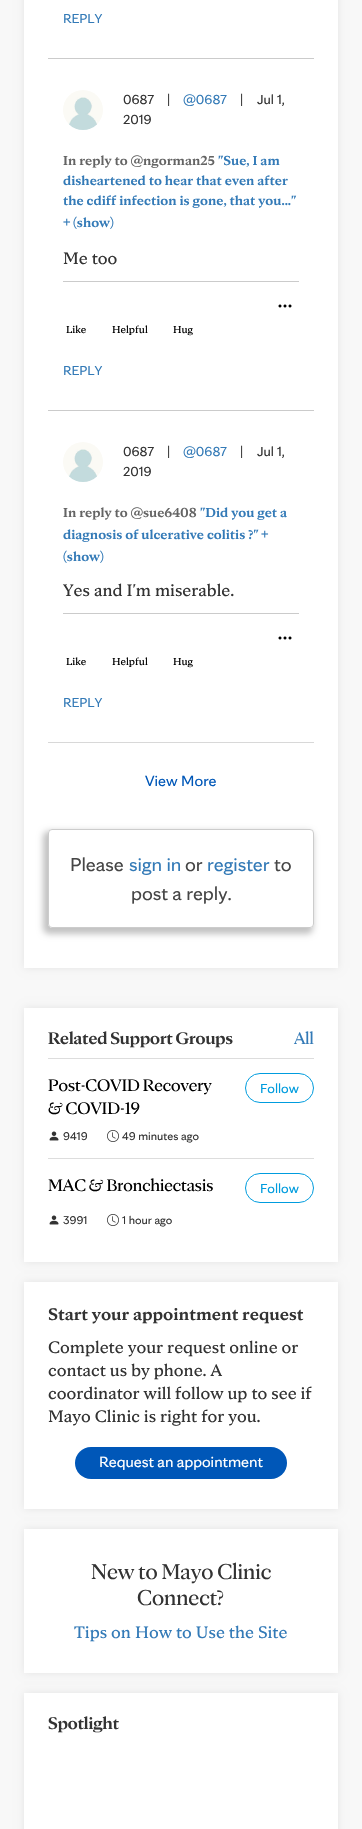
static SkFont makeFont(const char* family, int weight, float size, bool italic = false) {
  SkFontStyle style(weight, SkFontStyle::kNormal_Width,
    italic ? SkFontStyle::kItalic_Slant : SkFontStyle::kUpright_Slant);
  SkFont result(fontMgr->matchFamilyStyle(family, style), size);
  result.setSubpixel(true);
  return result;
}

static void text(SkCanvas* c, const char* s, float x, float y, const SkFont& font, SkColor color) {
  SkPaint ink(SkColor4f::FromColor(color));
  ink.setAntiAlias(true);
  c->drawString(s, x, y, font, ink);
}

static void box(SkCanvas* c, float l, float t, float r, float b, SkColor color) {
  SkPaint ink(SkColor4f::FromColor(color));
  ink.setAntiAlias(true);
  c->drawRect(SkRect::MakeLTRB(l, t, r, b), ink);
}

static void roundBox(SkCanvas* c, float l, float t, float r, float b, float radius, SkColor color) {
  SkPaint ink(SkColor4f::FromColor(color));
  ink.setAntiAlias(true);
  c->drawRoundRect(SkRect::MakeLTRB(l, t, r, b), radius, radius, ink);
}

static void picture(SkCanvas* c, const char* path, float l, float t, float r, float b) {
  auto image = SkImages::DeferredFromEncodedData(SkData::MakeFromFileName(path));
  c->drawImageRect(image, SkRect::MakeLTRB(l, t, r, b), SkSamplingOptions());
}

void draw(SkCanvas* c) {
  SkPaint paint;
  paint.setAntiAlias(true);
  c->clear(0xfff8f8f8);
  paint.setColor(0x14000000);
  paint.setMaskFilter(SkMaskFilter::MakeBlur(kNormal_SkBlurStyle, 4));
  c->drawRect(SkRect::MakeLTRB(24, -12, 338, 968), paint);
  paint.setMaskFilter(nullptr);
  box(c, 24, 0, 338, 968, 0xffffffff);
  SkFont face1 = makeFont("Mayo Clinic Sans", 400, 14);
  text(c, "REPLY", 63, 23, face1, 0xff337ab7);
  box(c, 48, 58, 314, 59, 0xffcbcbcb);
  picture(c, "img_01.png", 63, 90, 103, 130);
  text(c, "0687", 123, 104, face1, 0xff333333);
  text(c, "|", 167, 104, face1, 0xff333333);
  text(c, "@0687", 183, 104, face1, 0xff337ab7);
  text(c, "|", 240, 104, face1, 0xff333333);
  text(c, "Jul 1,", 257, 104, face1, 0xff333333);
  text(c, "2019", 123, 124, face1, 0xff333333);
  SkFont face2 = makeFont("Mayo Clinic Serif", 700, 14);
  text(c, "In reply to @ngorman25", 63, 165, face2, 0xff646464);
  text(c, "\"Sue, I am", 218, 165, face2, 0xff337ab7);
  text(c, "disheartened to hear that even after", 63, 185, face2, 0xff337ab7);
  text(c, "the cdiff infection is gone, that you...\"", 63, 205, face2, 0xff337ab7);
  SkFont face3 = makeFont("Mayo Clinic Serif", 700, 16);
  text(c, "+", 63, 227, face3, 0xff337ab7);
  text(c, "(show)", 73, 227, face2, 0xff337ab7);
  SkFont face4 = makeFont("Mayo Clinic Serif", 400, 18);
  text(c, "Me too", 63, 264, face4, 0xff333333);
  box(c, 63, 281, 299, 282, 0xffcbcbcb);
  picture(c, "img_02.png", 278, 304, 292, 308);
  SkFont face5 = makeFont("Mayo Clinic Serif", 400, 11);
  text(c, "Like", 66, 333, face5, 0xff000000);
  text(c, "Helpful", 112, 333, face5, 0xff000000);
  text(c, "Hug", 173, 333, face5, 0xff000000);
  text(c, "REPLY", 63, 375, face1, 0xff337ab7);
  box(c, 48, 410, 314, 411, 0xffcbcbcb);
  picture(c, "img_01.png", 63, 442, 103, 482);
  text(c, "0687", 123, 456, face1, 0xff333333);
  text(c, "|", 167, 456, face1, 0xff333333);
  text(c, "@0687", 183, 456, face1, 0xff337ab7);
  text(c, "|", 240, 456, face1, 0xff333333);
  text(c, "Jul 1,", 257, 456, face1, 0xff333333);
  text(c, "2019", 123, 476, face1, 0xff333333);
  text(c, "In reply to @sue6408", 63, 517, face2, 0xff646464);
  text(c, "\"Did you get a", 200, 517, face2, 0xff337ab7);
  text(c, "diagnosis of ulcerative colitis ?\"", 63, 539, face2, 0xff337ab7);
  text(c, "+", 261, 539, face3, 0xff337ab7);
  text(c, "(show)", 63, 561, face2, 0xff337ab7);
  text(c, "Yes and I'm miserable.", 63, 596, face4, 0xff333333);
  box(c, 63, 613, 299, 614, 0xffcbcbcb);
  picture(c, "img_02.png", 278, 636, 292, 640);
  text(c, "Like", 66, 665, face5, 0xff000000);
  text(c, "Helpful", 112, 665, face5, 0xff000000);
  text(c, "Hug", 173, 665, face5, 0xff000000);
  text(c, "REPLY", 63, 707, face1, 0xff337ab7);
  box(c, 48, 742, 314, 743, 0xffd8d8d8);
  SkFont face6 = makeFont("Mayo Clinic Sans", 400, 16);
  text(c, "View More", 145, 786, face6, 0xff0057b8);
  c->save();
  c->clipPath(SkPathBuilder(SkPathFillType::kEvenOdd).moveTo(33, 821).lineTo(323, 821).lineTo(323, 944).lineTo(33, 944).close().moveTo(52, 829).lineTo(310, 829).cubicTo(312, 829, 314, 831, 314, 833).lineTo(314, 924).cubicTo(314, 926, 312, 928, 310, 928).lineTo(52, 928).cubicTo(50, 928, 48, 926, 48, 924).lineTo(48, 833).cubicTo(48, 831, 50, 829, 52, 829).close().detach(), true);
  paint.setColor(0xffc2c2c2);
  paint.setMaskFilter(SkMaskFilter::MakeBlur(kNormal_SkBlurStyle, 3));
  c->drawRoundRect(SkRect::MakeLTRB(43, 831, 313, 934), 6, 6, paint);
  paint.setMaskFilter(nullptr);
  c->restore();
  paint.setStyle(SkPaint::kStroke_Style);
  paint.setStrokeWidth(1);
  paint.setColor(0xffcccccc);
  c->drawRoundRect(SkRect::MakeLTRB(48.5f, 829.5f, 313.5f, 927.5f), 3.5f, 3.5f, paint);
  SkFont face7 = makeFont("Mayo Clinic Sans", 400, 20);
  text(c, "Please", 70, 871, face7, 0xff464646);
  text(c, "sign in", 129, 871, face7, 0xff337ab7);
  text(c, "or", 185, 871, face7, 0xff464646);
  text(c, "register", 207, 871, face7, 0xff337ab7);
  text(c, "to", 274, 871, face7, 0xff464646);
  text(c, "post a reply.", 131, 900, face7, 0xff464646);
  paint.setStyle(SkPaint::kFill_Style);
  paint.setColor(0x14000000);
  paint.setMaskFilter(SkMaskFilter::MakeBlur(kNormal_SkBlurStyle, 4));
  c->drawRect(SkRect::MakeLTRB(24, 1008, 338, 1262), paint);
  paint.setMaskFilter(nullptr);
  box(c, 24, 1008, 338, 1262, 0xffffffff);
  SkFont face8 = makeFont("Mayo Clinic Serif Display", 700, 18);
  text(c, "Related Support Groups", 48, 1044, face8, 0xff333333);
  SkFont face9 = makeFont("Mayo Clinic Serif Display", 400, 18);
  text(c, "All", 294, 1044, face9, 0xff337ab7);
  box(c, 48, 1058, 314, 1059, 0xffdddddd);
  text(c, "Post-COVID Recovery", 48, 1091, face9, 0xff000000);
  text(c, "& COVID-19", 48, 1114, face9, 0xff000000);
  paint.setStyle(SkPaint::kStroke_Style);
  paint.setColor(0xff009cde);
  c->drawRoundRect(SkRect::MakeLTRB(245.5f, 1073.5f, 313.5f, 1102.5f), 14.5f, 14.5f, paint);
  text(c, "Follow", 260, 1093, face1, 0xff009cde);
  picture(c, "img_03.png", 49, 1131, 59, 1141);
  SkFont face10 = makeFont("Mayo Clinic Sans", 400, 12);
  text(c, "9419", 63, 1140, face10, 0xff333333);
  picture(c, "img_04.png", 107, 1130, 119, 1142);
  text(c, "49 minutes ago", 122, 1140, face10, 0xff333333);
  box(c, 48, 1158, 314, 1159, 0xffdddddd);
  text(c, "MAC & Bronchiectasis", 48, 1191, face9, 0xff000000);
  c->drawRoundRect(SkRect::MakeLTRB(245.5f, 1173.5f, 313.5f, 1202.5f), 14.5f, 14.5f, paint);
  text(c, "Follow", 260, 1193, face1, 0xff009cde);
  picture(c, "img_03.png", 49, 1215, 59, 1225);
  text(c, "3991", 63, 1224, face10, 0xff333333);
  picture(c, "img_04.png", 107, 1214, 119, 1226);
  text(c, "1 hour ago", 122, 1224, face10, 0xff333333);
  paint.setStyle(SkPaint::kFill_Style);
  paint.setColor(0x14000000);
  paint.setMaskFilter(SkMaskFilter::MakeBlur(kNormal_SkBlurStyle, 4));
  c->drawRect(SkRect::MakeLTRB(24, 1282, 338, 1509), paint);
  paint.setMaskFilter(nullptr);
  box(c, 24, 1282, 338, 1509, 0xffffffff);
  SkFont face11 = makeFont("Mayo Clinic Serif", 700, 18);
  text(c, "Start your appointment request", 48, 1320, face11, 0xff333333);
  text(c, "Complete your request online or", 48, 1353, face4, 0xff333333);
  text(c, "contact us by phone. A", 48, 1376, face4, 0xff333333);
  text(c, "coordinator will follow up to see if", 48, 1399, face4, 0xff333333);
  text(c, "Mayo Clinic is right for you.", 48, 1422, face4, 0xff333333);
  roundBox(c, 75, 1447, 287, 1479, 16, 0xff0057b8);
  text(c, "Request an appointment", 99, 1467, face6, 0xffffffff);
  paint.setMaskFilter(SkMaskFilter::MakeBlur(kNormal_SkBlurStyle, 4));
  c->drawRect(SkRect::MakeLTRB(24, 1529, 338, 1673), paint);
  paint.setMaskFilter(nullptr);
  box(c, 24, 1529, 338, 1673, 0xffffffff);
  SkFont face12 = makeFont("Mayo Clinic Serif Display", 400, 23);
  text(c, "New to Mayo Clinic", 91, 1579, face12, 0xff333333);
  text(c, "Connect?", 137, 1605, face12, 0xff333333);
  text(c, "Tips on How to Use the Site", 74, 1638, face4, 0xff337ab7);
  paint.setMaskFilter(SkMaskFilter::MakeBlur(kNormal_SkBlurStyle, 4));
  c->drawRect(SkRect::MakeLTRB(24, 1693, 338, 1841), paint);
  paint.setMaskFilter(nullptr);
  box(c, 24, 1693, 338, 1829, 0xffffffff);
  text(c, "Spotlight", 48, 1729, face8, 0xff333333);
}
